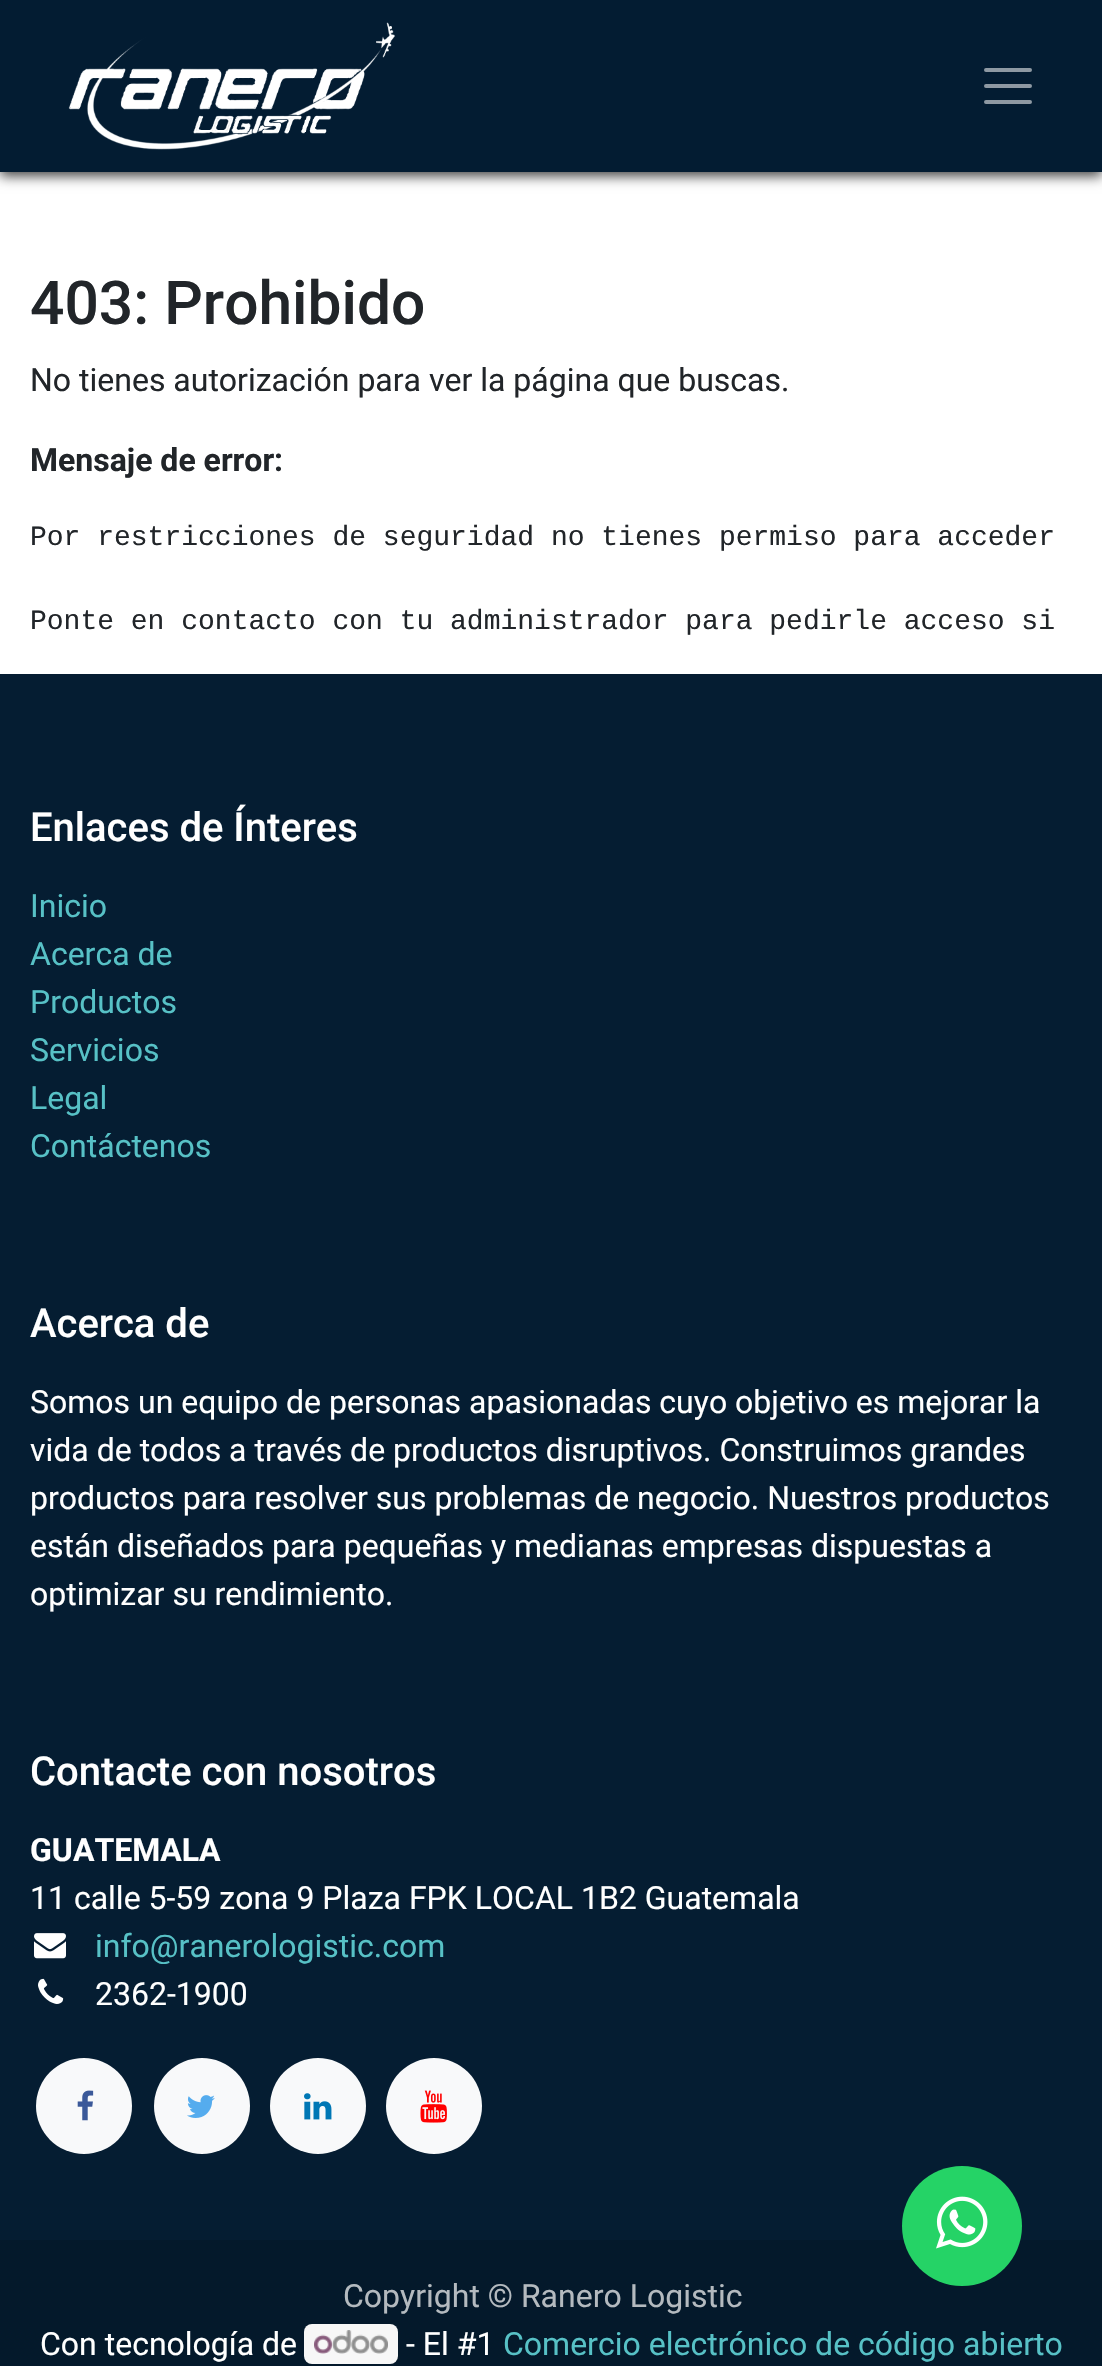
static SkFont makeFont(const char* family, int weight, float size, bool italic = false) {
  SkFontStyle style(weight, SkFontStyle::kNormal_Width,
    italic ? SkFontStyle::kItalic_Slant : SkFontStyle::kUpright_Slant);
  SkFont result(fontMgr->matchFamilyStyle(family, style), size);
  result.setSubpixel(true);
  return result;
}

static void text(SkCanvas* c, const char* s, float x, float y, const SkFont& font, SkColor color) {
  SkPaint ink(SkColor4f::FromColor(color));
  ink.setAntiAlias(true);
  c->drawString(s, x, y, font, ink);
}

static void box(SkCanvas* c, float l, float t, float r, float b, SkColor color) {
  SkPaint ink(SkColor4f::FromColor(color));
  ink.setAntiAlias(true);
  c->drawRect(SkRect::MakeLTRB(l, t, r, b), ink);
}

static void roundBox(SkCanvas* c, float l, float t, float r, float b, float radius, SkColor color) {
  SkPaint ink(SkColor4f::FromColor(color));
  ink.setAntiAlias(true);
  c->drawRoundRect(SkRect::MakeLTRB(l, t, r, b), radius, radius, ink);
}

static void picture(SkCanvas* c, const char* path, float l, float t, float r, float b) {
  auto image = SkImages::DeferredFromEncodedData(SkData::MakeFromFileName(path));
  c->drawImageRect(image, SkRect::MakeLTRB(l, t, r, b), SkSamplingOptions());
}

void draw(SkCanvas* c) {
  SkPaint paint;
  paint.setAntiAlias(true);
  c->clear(0xffffffff);
  paint.setColor(0xbf000000);
  paint.setMaskFilter(SkMaskFilter::MakeBlur(kNormal_SkBlurStyle, 6));
  c->drawRect(SkRect::MakeLTRB(0, 4, 1102, 176), paint);
  paint.setMaskFilter(nullptr);
  box(c, 0, 0, 1102, 172, 0xff031c32);
  picture(c, "img_01.png", 68, 22, 395, 150);
  paint.setStyle(SkPaint::kStroke_Style);
  paint.setStrokeWidth(4);
  paint.setStrokeCap(SkPaint::kRound_Cap);
  paint.setColor(0xff8e99a3);
  c->drawPath(SkPathBuilder().moveTo(986, 70).lineTo(1030, 70).moveTo(986, 86).lineTo(1030, 86).moveTo(986, 102).lineTo(1030, 102).detach(), paint);
  SkFont face1 = makeFont("Roboto", 500, 60.5f);
  text(c, "403: Prohibido", 30, 324, face1, 0xff212529);
  SkFont face2 = makeFont("Roboto", 400, 32);
  text(c, "No tienes autorización para ver la página que buscas.", 30, 391, face2, 0xff212529);
  SkFont face3 = makeFont("Roboto", 700, 32);
  text(c, "Mensaje de error:", 30, 471, face3, 0xff212529);
  SkFont face4 = makeFont("Liberation Mono", 400, 28);
  text(c, "Por restricciones de seguridad no tienes permiso para acceder", 30, 545, face4, 0xff212529);
  text(c, "Ponte en contacto con tu administrador para pedirle acceso si", 30, 629, face4, 0xff212529);
  box(c, 0, 674, 1102, 2240, 0xff051d32);
  SkFont face5 = makeFont("Roboto", 500, 40);
  text(c, "Enlaces de Ínteres", 30, 841, face5, 0xffffffff);
  text(c, "Inicio", 30, 917, face2, 0xff57c1c6);
  text(c, "Acerca de", 30, 965, face2, 0xff57c1c6);
  text(c, "Productos", 30, 1013, face2, 0xff57c1c6);
  text(c, "Servicios", 30, 1061, face2, 0xff57c1c6);
  text(c, "Legal", 30, 1109, face2, 0xff57c1c6);
  text(c, "Contáctenos", 30, 1157, face2, 0xff57c1c6);
  text(c, "Acerca de", 30, 1337, face5, 0xffffffff);
  text(c, "Somos un equipo de personas apasionadas cuyo objetivo es mejorar la", 30, 1413, face2, 0xffffffff);
  text(c, "vida de todos a través de productos disruptivos. Construimos grandes", 30, 1461, face2, 0xffffffff);
  text(c, "productos para resolver sus problemas de negocio. Nuestros productos", 30, 1509, face2, 0xffffffff);
  text(c, "están diseñados para pequeñas y medianas empresas dispuestas a", 30, 1557, face2, 0xffffffff);
  text(c, "optimizar su rendimiento.", 30, 1605, face2, 0xffffffff);
  text(c, "Contacte con nosotros", 30, 1785, face5, 0xffffffff);
  text(c, "GUATEMALA", 30, 1861, face3, 0xffffffff);
  text(c, "11 calle 5-59 zona 9 Plaza FPK LOCAL 1B2 Guatemala", 30, 1909, face2, 0xffffffff);
  picture(c, "img_02.png", 34, 1933, 66, 1959);
  text(c, "info@ranerologistic.com", 95, 1957, face2, 0xff57c1c6);
  picture(c, "img_03.png", 38, 1978, 64, 2004);
  text(c, "2362-1900", 95, 2005, face2, 0xffffffff);
  paint.setStyle(SkPaint::kFill_Style);
  paint.setColor(0xfff8f9fa);
  c->drawCircle(84, 2106, 48, paint);
  picture(c, "img_04.png", 77, 2090, 94, 2121);
  c->drawCircle(202, 2106, 48, paint);
  picture(c, "img_05.png", 187, 2095, 215, 2118);
  c->drawCircle(318, 2106, 48, paint);
  picture(c, "img_06.png", 304, 2093, 332, 2120);
  c->drawCircle(434, 2106, 48, paint);
  picture(c, "img_07.png", 420, 2090, 447, 2123);
  box(c, 0, 2240, 1102, 2366, 0xff04192b);
  text(c, "Copyright © Ranero Logistic", 343, 2307, face2, 0xffb4babf);
  text(c, "Con tecnología de", 40, 2355, face2, 0xffffffff);
  roundBox(c, 304, 2324, 398, 2364, 8, 0xfff7f7f7);
  picture(c, "img_08.png", 314, 2330, 388, 2354);
  text(c, "- El #1", 406, 2355, face2, 0xffffffff);
  text(c, "Comercio electrónico de código abierto", 503, 2355, face2, 0xff57c1c6);
  paint.setColor(0xff25d366);
  c->drawCircle(962, 2226, 60, paint);
  picture(c, "img_09.png", 936, 2196, 988, 2249);
}
